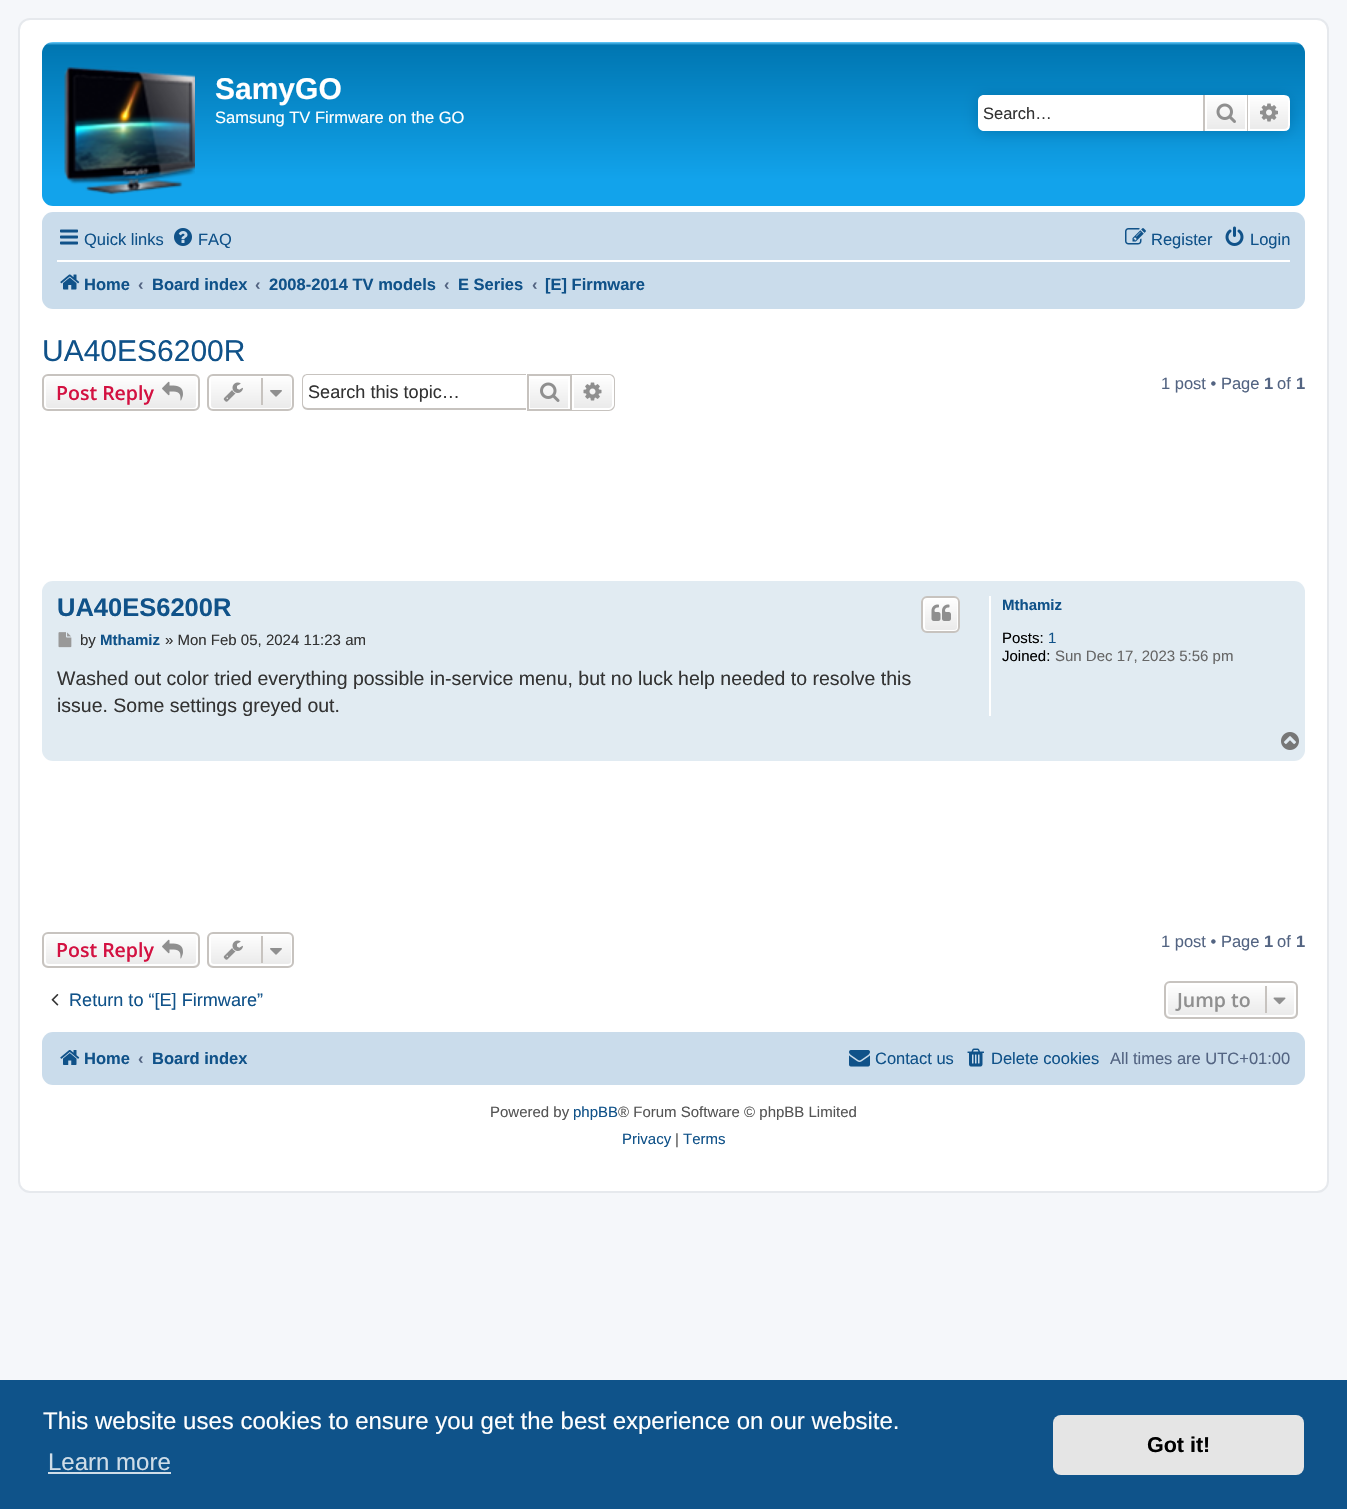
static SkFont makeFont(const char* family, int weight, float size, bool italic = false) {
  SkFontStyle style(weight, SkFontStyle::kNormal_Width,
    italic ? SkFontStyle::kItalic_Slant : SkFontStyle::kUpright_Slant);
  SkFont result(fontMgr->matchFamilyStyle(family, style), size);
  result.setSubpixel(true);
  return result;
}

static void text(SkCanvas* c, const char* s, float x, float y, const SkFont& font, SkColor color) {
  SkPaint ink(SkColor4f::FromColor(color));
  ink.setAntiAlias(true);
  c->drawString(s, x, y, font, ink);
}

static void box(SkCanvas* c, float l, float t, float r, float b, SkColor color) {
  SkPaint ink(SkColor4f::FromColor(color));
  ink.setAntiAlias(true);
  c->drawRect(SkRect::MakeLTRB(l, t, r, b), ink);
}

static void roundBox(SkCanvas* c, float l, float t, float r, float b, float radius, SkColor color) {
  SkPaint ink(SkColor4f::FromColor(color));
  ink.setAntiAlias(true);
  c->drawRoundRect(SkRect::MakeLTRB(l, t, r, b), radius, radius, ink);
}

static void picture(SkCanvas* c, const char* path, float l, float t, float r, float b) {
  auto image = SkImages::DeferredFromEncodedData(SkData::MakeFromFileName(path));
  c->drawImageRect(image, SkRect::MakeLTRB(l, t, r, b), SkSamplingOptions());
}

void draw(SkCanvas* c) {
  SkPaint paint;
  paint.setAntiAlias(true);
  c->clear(0xfff5f7fa);
  paint.setColor(0xffffffff);
  c->drawRoundRect(SkRect::MakeLTRB(19, 19, 1328, 1192), 11, 11, paint);
  paint.setStyle(SkPaint::kStroke_Style);
  paint.setStrokeWidth(2);
  paint.setColor(0xffe6e9ed);
  c->drawRoundRect(SkRect::MakeLTRB(19, 19, 1328, 1192), 11, 11, paint);
  paint.setStyle(SkPaint::kFill_Style);
  {
    const SkColor colors[] = {0xff6aceff, 0xff0076b1, 0xff12a3eb, 0xff12a3eb};
    const float stops[] = {0, 0.02f, 0.84f, 1};
    const SkPoint ends[] = {{674, 42}, {674, 206}};
    paint.setShader(SkGradientShader::MakeLinear(ends, colors, stops, 4, SkTileMode::kClamp));
    paint.setAlpha(255);
  }
  c->drawRoundRect(SkRect::MakeLTRB(42, 42, 1305, 206), 11, 11, paint);
  picture(c, "img_01.png", 64, 66, 195, 195);
  SkFont face1 = makeFont("Liberation Sans", 700, 30);
  text(c, "SamyGO", 215, 99, face1, 0xffffffff);
  SkFont face2 = makeFont("Liberation Sans", 400, 16.5f);
  text(c, "Samsung TV Firmware on the GO", 215, 123, face2, 0xffffffff);
  paint.setShader(nullptr);
  paint.setColor(0xff0075b0);
  paint.setMaskFilter(SkMaskFilter::MakeBlur(kNormal_SkBlurStyle, 7.5f));
  c->drawRoundRect(SkRect::MakeLTRB(978, 95, 1290, 131), 6, 6, paint);
  paint.setMaskFilter(nullptr);
  paint.setColor(0xffffffff);
  c->drawPath(SkPathBuilder().moveTo(984, 95).lineTo(1203, 95).lineTo(1203, 131).lineTo(984, 131).cubicTo(980.5f, 131, 978, 128.5f, 978, 125).lineTo(978, 101).cubicTo(978, 97.5f, 980.5f, 95, 984, 95).close().detach(), paint);
  text(c, "Search…", 983, 119, face2, 0xff333333);
  {
    const SkColor colors[] = {0xffffffff, 0xffe9e9e9};
    const float stops[] = {0, 1};
    const SkPoint ends[] = {{1226, 95}, {1226, 131}};
    paint.setShader(SkGradientShader::MakeLinear(ends, colors, stops, 2, SkTileMode::kClamp));
    paint.setAlpha(255);
  }
  c->drawRect(SkRect::MakeLTRB(1207, 97, 1245, 129), paint);
  paint.setStyle(SkPaint::kStroke_Style);
  paint.setShader(nullptr);
  paint.setColor(0xffffffff);
  c->drawRect(SkRect::MakeLTRB(1206, 96, 1246, 130), paint);
  box(c, 1247, 95, 1248, 131, 0xffc7c3bf);
  box(c, 1203, 95, 1205, 131, 0xffc7c3bf);
  picture(c, "img_02.png", 1216, 103, 1236, 123);
  paint.setStyle(SkPaint::kFill_Style);
  {
    const SkColor colors[] = {0xffffffff, 0xffe9e9e9};
    const float stops[] = {0, 1};
    const SkPoint ends[] = {{1269, 95}, {1269, 131}};
    paint.setShader(SkGradientShader::MakeLinear(ends, colors, stops, 2, SkTileMode::kClamp));
    paint.setAlpha(255);
  }
  c->drawPath(SkPathBuilder().moveTo(1249, 96).lineTo(1284, 96).cubicTo(1287, 96, 1289, 98, 1289, 101).lineTo(1289, 125).cubicTo(1289, 128, 1287, 130, 1284, 130).lineTo(1249, 130).close().detach(), paint);
  paint.setStyle(SkPaint::kStroke_Style);
  paint.setShader(nullptr);
  paint.setColor(0xffffffff);
  c->drawPath(SkPathBuilder().moveTo(1249, 96).lineTo(1284, 96).cubicTo(1287, 96, 1289, 98, 1289, 101).lineTo(1289, 125).cubicTo(1289, 128, 1287, 130, 1284, 130).lineTo(1249, 130).close().detach(), paint);
  picture(c, "img_03.png", 1260, 103, 1278, 122);
  roundBox(c, 42, 212, 1305, 309, 11, 0xffcadceb);
  picture(c, "img_04.png", 60, 229, 78, 245);
  text(c, "Quick links", 84, 245, face2, 0xff105289);
  picture(c, "img_05.png", 174, 228, 192, 246);
  text(c, "FAQ", 198, 245, face2, 0xff105289);
  picture(c, "img_06.png", 1125, 228, 1146, 245);
  text(c, "Register", 1151, 245, face2, 0xff105289);
  picture(c, "img_07.png", 1225, 226, 1244, 246);
  text(c, "Login", 1250, 245, face2, 0xff105289);
  box(c, 57, 260, 1290, 262, 0xffffffff);
  picture(c, "img_08.png", 60, 274, 80, 290);
  SkFont face3 = makeFont("Liberation Sans", 700, 16.5f);
  text(c, "Home", 84, 290, face3, 0xff105289);
  text(c, "‹", 138, 290, face3, 0xff536482);
  text(c, "Board index", 152, 290, face3, 0xff105289);
  text(c, "‹", 255, 290, face3, 0xff536482);
  text(c, "2008-2014 TV models", 269, 290, face3, 0xff105289);
  text(c, "‹", 444, 290, face3, 0xff536482);
  text(c, "E Series", 458, 290, face3, 0xff105289);
  text(c, "‹", 532, 290, face3, 0xff536482);
  text(c, "[E] Firmware", 545, 290, face3, 0xff105289);
  SkFont face4 = makeFont("Liberation Sans", 400, 30);
  text(c, "UA40ES6200R", 42, 361, face4, 0xff105289);
  c->save();
  c->clipPath(SkPathBuilder().moveTo(48, 374).lineTo(194, 374).cubicTo(197.5f, 374, 200, 376.5f, 200, 380).lineTo(200, 405).cubicTo(200, 408.5f, 197.5f, 411, 194, 411).lineTo(48, 411).cubicTo(44.5f, 411, 42, 408.5f, 42, 405).lineTo(42, 380).cubicTo(42, 376.5f, 44.5f, 374, 48, 374).close().detach(), true);
  paint.setStyle(SkPaint::kFill_Style);
  {
    const SkColor colors[] = {0xffffffff, 0xffe9e9e9};
    const float stops[] = {0, 1};
    const SkPoint ends[] = {{121, 375}, {121, 410}};
    paint.setShader(SkGradientShader::MakeLinear(ends, colors, stops, 2, SkTileMode::kClamp));
    paint.setAlpha(255);
  }
  c->drawRect(SkRect::MakeLTRB(42, 375, 200, 410), paint);
  c->restore();
  paint.setStyle(SkPaint::kStroke_Style);
  paint.setShader(nullptr);
  paint.setColor(0xffffffff);
  c->drawRoundRect(SkRect::MakeLTRB(45, 376, 197, 409), 4, 4, paint);
  paint.setColor(0xffc7c3bf);
  c->drawRoundRect(SkRect::MakeLTRB(43, 375, 199, 410), 5, 5, paint);
  SkFont face5 = makeFont("Open Sans", 600, 19.5f);
  text(c, "Post Reply", 56, 400, face5, 0xffd31141);
  picture(c, "img_09.png", 162, 381, 183, 401);
  c->save();
  c->clipPath(SkPathBuilder().moveTo(213, 374).lineTo(288, 374).cubicTo(291.5f, 374, 294, 376.5f, 294, 380).lineTo(294, 405).cubicTo(294, 408.5f, 291.5f, 411, 288, 411).lineTo(213, 411).cubicTo(209.5f, 411, 207, 408.5f, 207, 405).lineTo(207, 380).cubicTo(207, 376.5f, 209.5f, 374, 213, 374).close().detach(), true);
  paint.setStyle(SkPaint::kFill_Style);
  {
    const SkColor colors[] = {0xffffffff, 0xffe9e9e9};
    const float stops[] = {0, 1};
    const SkPoint ends[] = {{251, 375}, {251, 410}};
    paint.setShader(SkGradientShader::MakeLinear(ends, colors, stops, 2, SkTileMode::kClamp));
    paint.setAlpha(255);
  }
  c->drawRect(SkRect::MakeLTRB(207, 375, 294, 410), paint);
  c->restore();
  paint.setStyle(SkPaint::kStroke_Style);
  paint.setShader(nullptr);
  paint.setColor(0xffffffff);
  c->drawRoundRect(SkRect::MakeLTRB(210, 376, 292, 409), 4, 4, paint);
  paint.setColor(0xffc7c3bf);
  c->drawRoundRect(SkRect::MakeLTRB(208, 375, 293, 410), 5, 5, paint);
  picture(c, "img_10.png", 223, 382, 243, 402);
  box(c, 261, 378, 263, 405, 0xffc7c3bf);
  picture(c, "img_11.png", 270, 390, 282, 397);
  paint.setStyle(SkPaint::kFill_Style);
  c->drawPath(SkPathBuilder(SkPathFillType::kEvenOdd).moveTo(308, 374).lineTo(526, 374).lineTo(526, 410).lineTo(308, 410).cubicTo(304, 410, 302, 407, 302, 404).lineTo(302, 380).cubicTo(302, 376, 304, 374, 308, 374).close().moveTo(308, 375).lineTo(526, 375).lineTo(526, 408).lineTo(308, 408).cubicTo(305, 408, 303, 406, 303, 404).lineTo(303, 380).cubicTo(303, 377, 305, 375, 308, 375).close().detach(), paint);
  SkFont face6 = makeFont("Liberation Sans", 400, 18.1f);
  text(c, "Search this topic…", 308, 398, face6, 0xff333333);
  {
    const SkColor colors[] = {0xffffffff, 0xffe9e9e9};
    const float stops[] = {0, 1};
    const SkPoint ends[] = {{549, 375}, {549, 410}};
    paint.setShader(SkGradientShader::MakeLinear(ends, colors, stops, 2, SkTileMode::kClamp));
    paint.setAlpha(255);
  }
  c->drawRect(SkRect::MakeLTRB(530, 379, 568, 408), paint);
  paint.setStyle(SkPaint::kStroke_Style);
  paint.setShader(nullptr);
  paint.setColor(0xffc7c3bf);
  c->drawRect(SkRect::MakeLTRB(528, 375, 571, 410), paint);
  picture(c, "img_12.png", 540, 382, 560, 402);
  paint.setStyle(SkPaint::kFill_Style);
  {
    const SkColor colors[] = {0xffffffff, 0xffe9e9e9};
    const float stops[] = {0, 1};
    const SkPoint ends[] = {{593, 375}, {593, 410}};
    paint.setShader(SkGradientShader::MakeLinear(ends, colors, stops, 2, SkTileMode::kClamp));
    paint.setAlpha(255);
  }
  c->drawPath(SkPathBuilder().moveTo(573, 376).lineTo(609, 376).cubicTo(611, 376, 613, 378, 613, 380).lineTo(613, 405).cubicTo(613, 407, 611, 409, 609, 409).lineTo(573, 409).close().detach(), paint);
  paint.setStyle(SkPaint::kStroke_Style);
  paint.setShader(nullptr);
  paint.setColor(0xffffffff);
  c->drawPath(SkPathBuilder().moveTo(573, 376).lineTo(609, 376).cubicTo(611, 376, 613, 378, 613, 380).lineTo(613, 405).cubicTo(613, 407, 611, 409, 609, 409).lineTo(573, 409).close().detach(), paint);
  paint.setStyle(SkPaint::kFill_Style);
  paint.setColor(0xffc7c3bf);
  c->drawPath(SkPathBuilder(SkPathFillType::kEvenOdd).moveTo(572, 374).lineTo(609, 374).cubicTo(612, 374, 615, 376, 615, 380).lineTo(615, 405).cubicTo(615, 408, 612, 411, 609, 411).lineTo(572, 411).close().moveTo(572, 375).lineTo(609, 375).cubicTo(611, 375, 614, 377, 614, 380).lineTo(614, 405).cubicTo(614, 407, 611, 410, 609, 410).lineTo(572, 410).close().detach(), paint);
  picture(c, "img_13.png", 583, 382, 602, 401);
  text(c, "1 post • Page", 1161, 389, face2, 0xff536482);
  text(c, "1", 1264, 389, face3, 0xff536482);
  text(c, "of", 1277, 389, face2, 0xff536482);
  text(c, "1", 1296, 389, face3, 0xff536482);
  roundBox(c, 42, 581, 1305, 761, 11, 0xffe1ebf2);
  SkFont face7 = makeFont("Liberation Sans", 700, 25.5f);
  text(c, "UA40ES6200R", 57, 616, face7, 0xff105289);
  c->save();
  c->clipPath(SkPathBuilder().moveTo(927, 596).lineTo(954, 596).cubicTo(957.5f, 596, 960, 598.5f, 960, 602).lineTo(960, 627).cubicTo(960, 630.5f, 957.5f, 633, 954, 633).lineTo(927, 633).cubicTo(923.5f, 633, 921, 630.5f, 921, 627).lineTo(921, 602).cubicTo(921, 598.5f, 923.5f, 596, 927, 596).close().detach(), true);
  {
    const SkColor colors[] = {0xffffffff, 0xffe9e9e9};
    const float stops[] = {0, 1};
    const SkPoint ends[] = {{941, 597}, {941, 632}};
    paint.setShader(SkGradientShader::MakeLinear(ends, colors, stops, 2, SkTileMode::kClamp));
    paint.setAlpha(255);
  }
  c->drawRect(SkRect::MakeLTRB(921, 597, 960, 632), paint);
  c->restore();
  paint.setStyle(SkPaint::kStroke_Style);
  paint.setShader(nullptr);
  paint.setColor(0xffffffff);
  c->drawRoundRect(SkRect::MakeLTRB(924, 598, 958, 631), 4, 4, paint);
  paint.setColor(0xffc7c3bf);
  c->drawRoundRect(SkRect::MakeLTRB(922, 597, 959, 632), 5, 5, paint);
  picture(c, "img_14.png", 931, 604, 951, 621);
  picture(c, "img_15.png", 58, 632, 72, 648);
  SkFont face8 = makeFont("Liberation Sans", 400, 15);
  text(c, "by", 80, 645, face8, 0xff333333);
  SkFont face9 = makeFont("Liberation Sans", 700, 15);
  text(c, "Mthamiz", 100, 645, face9, 0xff105289);
  text(c, "» Mon Feb 05, 2024 11:23 am", 165, 645, face8, 0xff333333);
  SkFont face10 = makeFont("Liberation Sans", 400, 19.5f);
  text(c, "Washed out color tried everything possible in-service menu, but no luck help needed to resolve this", 57, 685, face10, 0xff333333);
  text(c, "issue. Some settings greyed out.", 57, 712, face10, 0xff333333);
  box(c, 989, 596, 991, 716, 0xffffffff);
  text(c, "Mthamiz", 1002, 610, face9, 0xff105289);
  text(c, "Posts:", 1002, 643, face8, 0xff000000);
  text(c, "1", 1048, 643, face8, 0xff105289);
  text(c, "Joined:", 1002, 661, face8, 0xff000000);
  text(c, "Sun Dec 17, 2023 5:56 pm", 1055, 661, face8, 0xff666666);
  picture(c, "img_16.png", 1281, 732, 1299, 750);
  c->save();
  c->clipPath(SkPathBuilder().moveTo(48, 932).lineTo(194, 932).cubicTo(197.5f, 932, 200, 934.5f, 200, 938).lineTo(200, 962).cubicTo(200, 965.5f, 197.5f, 968, 194, 968).lineTo(48, 968).cubicTo(44.5f, 968, 42, 965.5f, 42, 962).lineTo(42, 938).cubicTo(42, 934.5f, 44.5f, 932, 48, 932).close().detach(), true);
  paint.setStyle(SkPaint::kFill_Style);
  {
    const SkColor colors[] = {0xffffffff, 0xffe9e9e9};
    const float stops[] = {0, 1};
    const SkPoint ends[] = {{121, 933}, {121, 966}};
    paint.setShader(SkGradientShader::MakeLinear(ends, colors, stops, 2, SkTileMode::kClamp));
    paint.setAlpha(255);
  }
  c->drawRect(SkRect::MakeLTRB(42, 933, 200, 966), paint);
  c->restore();
  paint.setStyle(SkPaint::kStroke_Style);
  paint.setShader(nullptr);
  paint.setColor(0xffffffff);
  c->drawRoundRect(SkRect::MakeLTRB(45, 934, 197, 965), 4, 4, paint);
  paint.setColor(0xffc7c3bf);
  c->drawRoundRect(SkRect::MakeLTRB(43, 933, 199, 967), 5, 5, paint);
  text(c, "Post Reply", 56, 957, face5, 0xffd31141);
  picture(c, "img_17.png", 162, 939, 183, 959);
  c->save();
  c->clipPath(SkPathBuilder().moveTo(213, 932).lineTo(288, 932).cubicTo(291.5f, 932, 294, 934.5f, 294, 938).lineTo(294, 962).cubicTo(294, 965.5f, 291.5f, 968, 288, 968).lineTo(213, 968).cubicTo(209.5f, 968, 207, 965.5f, 207, 962).lineTo(207, 938).cubicTo(207, 934.5f, 209.5f, 932, 213, 932).close().detach(), true);
  paint.setStyle(SkPaint::kFill_Style);
  {
    const SkColor colors[] = {0xffffffff, 0xffe9e9e9};
    const float stops[] = {0, 1};
    const SkPoint ends[] = {{251, 933}, {251, 966}};
    paint.setShader(SkGradientShader::MakeLinear(ends, colors, stops, 2, SkTileMode::kClamp));
    paint.setAlpha(255);
  }
  c->drawRect(SkRect::MakeLTRB(207, 933, 294, 966), paint);
  c->restore();
  paint.setStyle(SkPaint::kStroke_Style);
  paint.setShader(nullptr);
  paint.setColor(0xffffffff);
  c->drawRoundRect(SkRect::MakeLTRB(210, 934, 292, 965), 4, 4, paint);
  paint.setColor(0xffc7c3bf);
  c->drawRoundRect(SkRect::MakeLTRB(208, 933, 293, 967), 5, 5, paint);
  picture(c, "img_18.png", 223, 940, 243, 960);
  box(c, 261, 936, 263, 963, 0xffc7c3bf);
  picture(c, "img_19.png", 270, 948, 282, 955);
  text(c, "1 post • Page", 1161, 947, face2, 0xff536482);
  text(c, "1", 1264, 947, face3, 0xff536482);
  text(c, "of", 1277, 947, face2, 0xff536482);
  text(c, "1", 1296, 947, face3, 0xff536482);
  picture(c, "img_20.png", 51, 994, 59, 1006);
  text(c, "Return to “[E] Firmware”", 69, 1006, face6, 0xff105289);
  c->save();
  c->clipPath(SkPathBuilder().moveTo(1170, 981).lineTo(1292, 981).cubicTo(1295.5f, 981, 1298, 983.5f, 1298, 987).lineTo(1298, 1013).cubicTo(1298, 1016.5f, 1295.5f, 1019, 1292, 1019).lineTo(1170, 1019).cubicTo(1166.5f, 1019, 1164, 1016.5f, 1164, 1013).lineTo(1164, 987).cubicTo(1164, 983.5f, 1166.5f, 981, 1170, 981).close().detach(), true);
  paint.setStyle(SkPaint::kFill_Style);
  {
    const SkColor colors[] = {0xffffffff, 0xffe9e9e9};
    const float stops[] = {0, 1};
    const SkPoint ends[] = {{1231, 983}, {1231, 1017}};
    paint.setShader(SkGradientShader::MakeLinear(ends, colors, stops, 2, SkTileMode::kClamp));
    paint.setAlpha(255);
  }
  c->drawRect(SkRect::MakeLTRB(1164, 983, 1298, 1017), paint);
  c->restore();
  paint.setStyle(SkPaint::kStroke_Style);
  paint.setShader(nullptr);
  paint.setColor(0xffffffff);
  c->drawRoundRect(SkRect::MakeLTRB(1167, 984, 1295, 1016), 4, 4, paint);
  paint.setColor(0xffc7c3bf);
  c->drawRoundRect(SkRect::MakeLTRB(1165, 982, 1297, 1018), 5, 5, paint);
  text(c, "Jump to", 1177, 1007, face5, 0xff8f8f8f);
  box(c, 1265, 986, 1267, 1013, 0xffc7c3bf);
  picture(c, "img_21.png", 1273, 997, 1286, 1005);
  roundBox(c, 42, 1032, 1305, 1085, 11, 0xffcadceb);
  picture(c, "img_22.png", 60, 1050, 80, 1065);
  text(c, "Home", 84, 1064, face3, 0xff105289);
  text(c, "‹", 138, 1064, face3, 0xff536482);
  text(c, "Board index", 152, 1064, face3, 0xff105289);
  picture(c, "img_23.png", 849, 1050, 870, 1067);
  text(c, "Contact us", 875, 1064, face2, 0xff105289);
  picture(c, "img_24.png", 967, 1048, 984, 1067);
  text(c, "Delete cookies", 991, 1064, face2, 0xff105289);
  text(c, "All times are UTC+01:00", 1110, 1064, face2, 0xff536482);
  text(c, "Powered by", 490, 1117, face8, 0xff555555);
  text(c, "phpBB", 573, 1117, face8, 0xff105289);
  text(c, "® Forum Software © phpBB Limited", 618, 1117, face8, 0xff555555);
  text(c, "Privacy", 622, 1144, face8, 0xff105289);
  text(c, "|", 675, 1144, face8, 0xff555555);
  text(c, "Terms", 683, 1144, face8, 0xff105289);
  box(c, 0, 1380, 1347, 1509, 0xff0f538a);
  SkFont face11 = makeFont("Liberation Sans", 400, 24);
  text(c, "This website uses cookies to ensure you get the best experience on our website.", 43, 1429, face11, 0xffffffff);
  text(c, "Learn more", 48, 1470, face11, 0xffcfdde8);
  box(c, 48, 1472, 171, 1474, 0xffcfdde8);
  roundBox(c, 1053, 1415, 1304, 1475, 8, 0xffe5e5e5);
  SkFont face12 = makeFont("Liberation Sans", 700, 21.5f);
  text(c, "Got it!", 1147, 1452, face12, 0xff000000);
}
